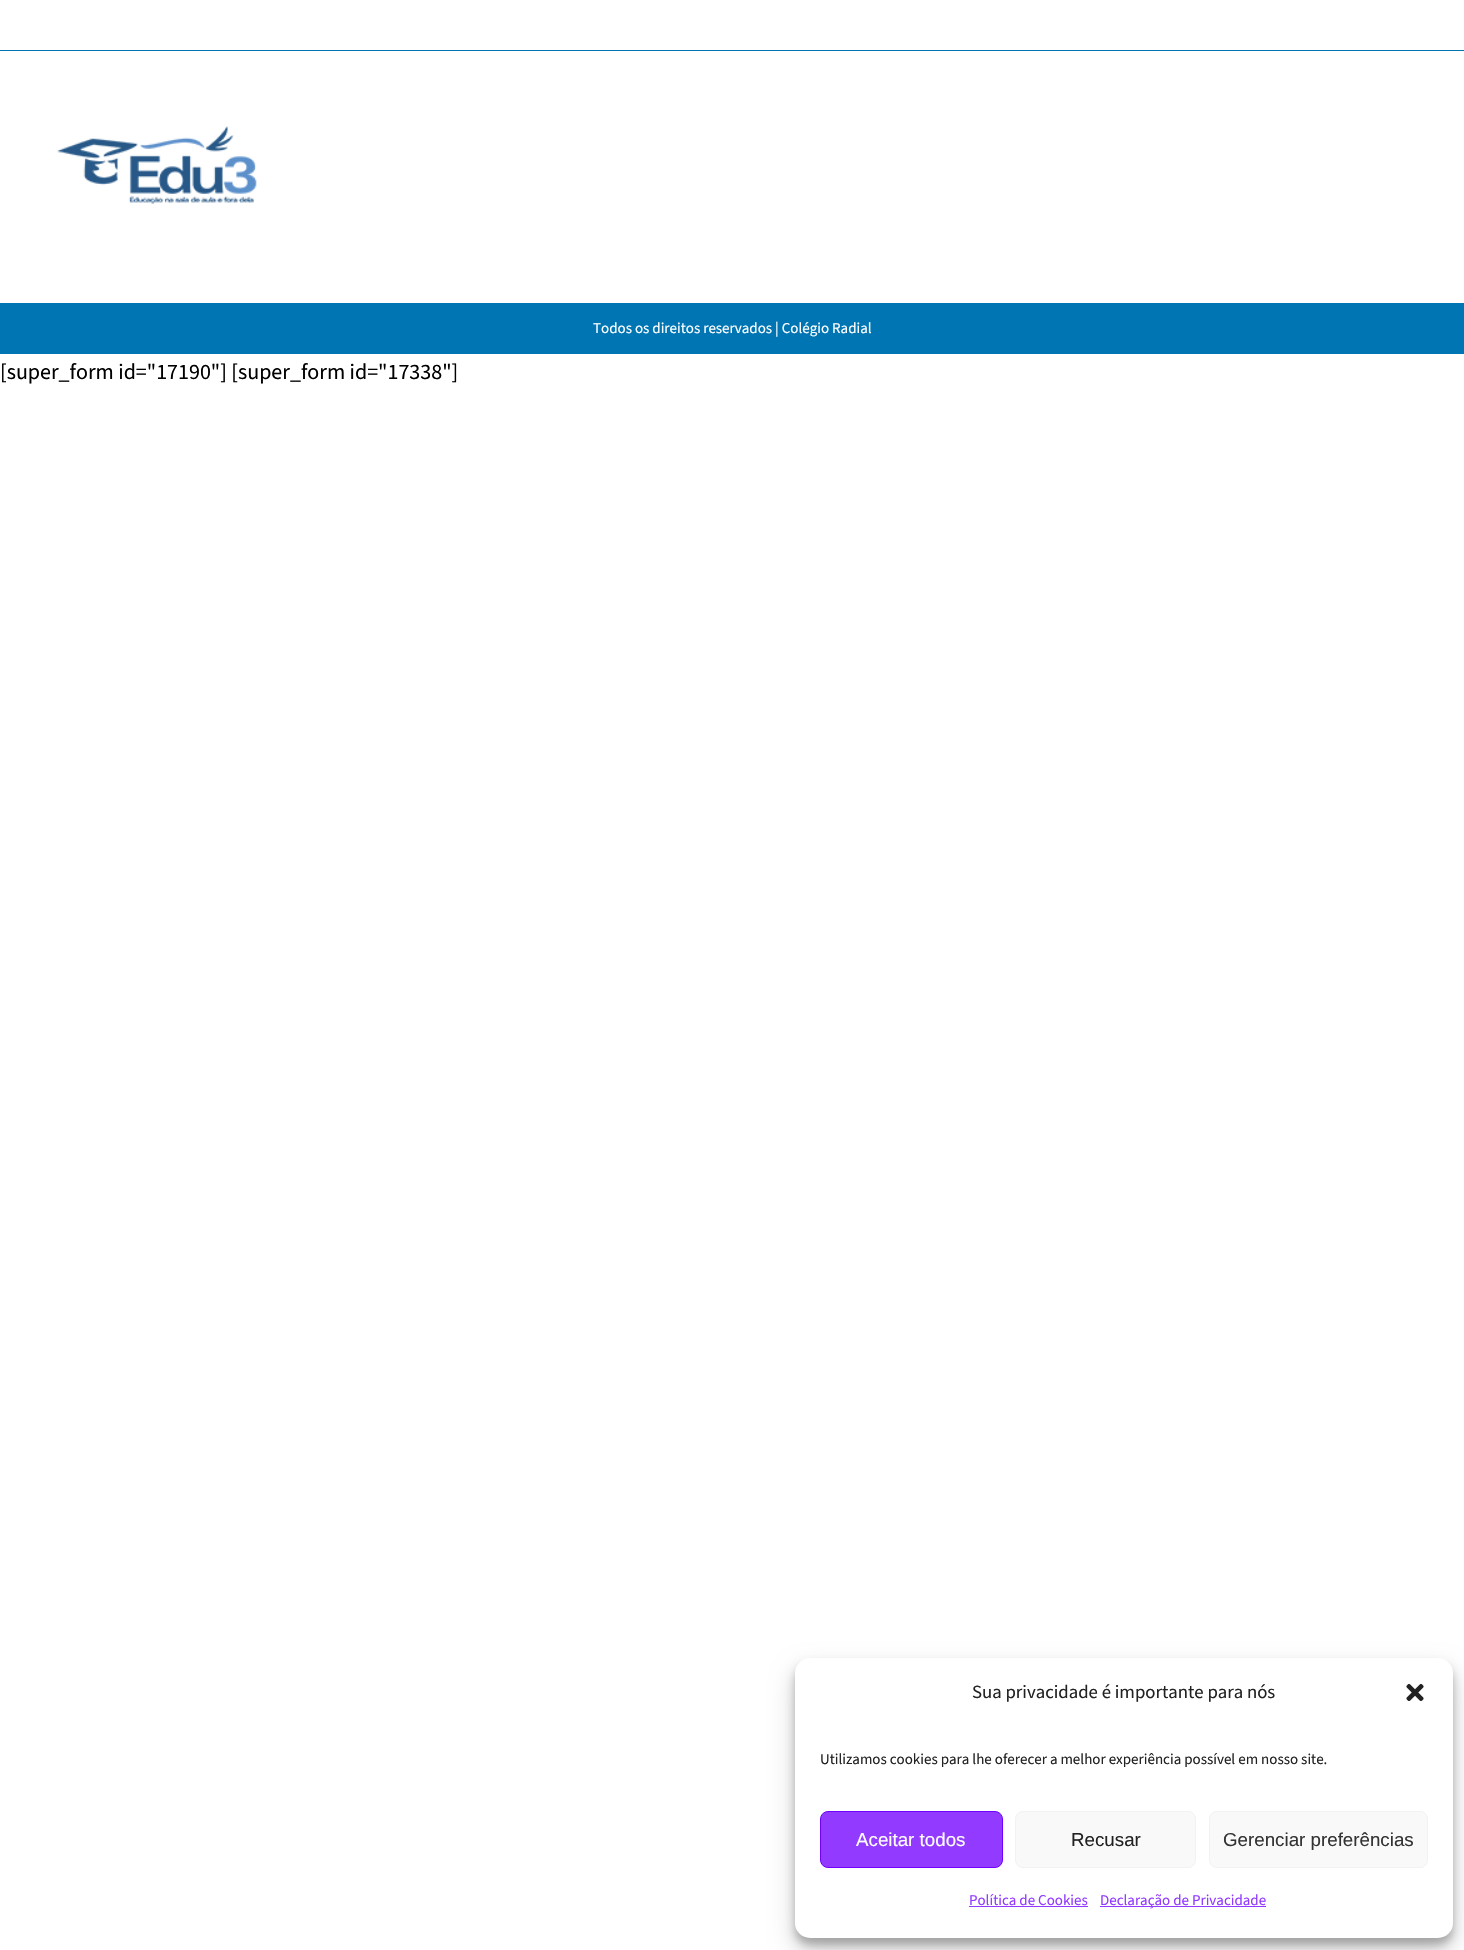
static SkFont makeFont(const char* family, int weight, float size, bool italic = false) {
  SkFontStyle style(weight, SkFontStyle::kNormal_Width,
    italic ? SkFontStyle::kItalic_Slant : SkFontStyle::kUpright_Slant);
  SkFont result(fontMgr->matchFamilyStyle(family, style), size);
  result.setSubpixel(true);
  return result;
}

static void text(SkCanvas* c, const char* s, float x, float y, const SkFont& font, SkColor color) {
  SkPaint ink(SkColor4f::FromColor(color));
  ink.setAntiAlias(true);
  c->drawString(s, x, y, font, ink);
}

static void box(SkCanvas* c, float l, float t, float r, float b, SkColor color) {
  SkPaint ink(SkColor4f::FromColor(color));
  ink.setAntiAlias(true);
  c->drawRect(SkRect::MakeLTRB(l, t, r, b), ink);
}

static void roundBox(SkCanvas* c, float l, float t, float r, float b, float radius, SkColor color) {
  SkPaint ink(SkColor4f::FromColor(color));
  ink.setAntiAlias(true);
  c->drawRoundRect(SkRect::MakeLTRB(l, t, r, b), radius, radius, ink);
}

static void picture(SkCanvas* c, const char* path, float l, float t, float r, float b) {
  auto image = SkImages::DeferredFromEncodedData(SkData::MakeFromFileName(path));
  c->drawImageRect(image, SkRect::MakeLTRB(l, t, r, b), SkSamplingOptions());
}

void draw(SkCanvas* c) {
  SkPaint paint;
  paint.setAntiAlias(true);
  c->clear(0xffffffff);
  box(c, 0, 50, 1464, 51, 0xff0074b1);
  picture(c, "img_01.png", 57, 126, 257, 204);
  box(c, 0, 303, 1464, 354, 0xff0075b4);
  SkFont face1 = makeFont("Source Sans 3", 400, 15);
  text(c, "Todos os direitos reservados | Colégio Radial", 593, 333, face1, 0xffffffff);
  SkFont face2 = makeFont("Source Sans 3", 400, 22);
  text(c, "[super_form id=\"17190\"] [super_form id=\"17338\"]", 0, 379, face2, 0xff000000);
  paint.setColor(0x3b000000);
  paint.setMaskFilter(SkMaskFilter::MakeBlur(kNormal_SkBlurStyle, 4));
  c->drawRoundRect(SkRect::MakeLTRB(795, 1665, 1453, 1945), 15, 15, paint);
  paint.setMaskFilter(nullptr);
  paint.setColor(0x30000000);
  paint.setMaskFilter(SkMaskFilter::MakeBlur(kNormal_SkBlurStyle, 12.5f));
  c->drawRoundRect(SkRect::MakeLTRB(795, 1670, 1453, 1950), 15, 15, paint);
  paint.setMaskFilter(nullptr);
  roundBox(c, 795, 1658, 1453, 1938, 15, 0xffffffff);
  SkFont face3 = makeFont("Source Sans 3", 400, 18.75f);
  text(c, "Sua privacidade é importante para nós", 972, 1698, face3, 0xff222222);
  picture(c, "img_02.png", 1406, 1683, 1424, 1701);
  text(c, "Utilizamos cookies para lhe oferecer a melhor experiência possível em nosso site.", 820, 1764, face1, 0xff222222);
  paint.setColor(0xff923aff);
  c->drawRoundRect(SkRect::MakeLTRB(820.5f, 1811.5f, 1002.5f, 1867.5f), 7.5f, 7.5f, paint);
  paint.setStyle(SkPaint::kStroke_Style);
  paint.setStrokeWidth(1);
  paint.setColor(0xff7200ff);
  c->drawRoundRect(SkRect::MakeLTRB(820.5f, 1811.5f, 1002.5f, 1867.5f), 7.5f, 7.5f, paint);
  SkFont face4 = makeFont("Liberation Sans", 400, 18.75f);
  text(c, "Aceitar todos", 856, 1846, face4, 0xffffffff);
  paint.setStyle(SkPaint::kFill_Style);
  paint.setColor(0xfff9f9f9);
  c->drawRoundRect(SkRect::MakeLTRB(1015.5f, 1811.5f, 1195.5f, 1867.5f), 7.5f, 7.5f, paint);
  paint.setStyle(SkPaint::kStroke_Style);
  paint.setColor(0xfff2f2f2);
  c->drawRoundRect(SkRect::MakeLTRB(1015.5f, 1811.5f, 1195.5f, 1867.5f), 7.5f, 7.5f, paint);
  text(c, "Recusar", 1071, 1846, face4, 0xff222222);
  paint.setStyle(SkPaint::kFill_Style);
  paint.setColor(0xfff9f9f9);
  c->drawRoundRect(SkRect::MakeLTRB(1209.5f, 1811.5f, 1427.5f, 1867.5f), 7.5f, 7.5f, paint);
  paint.setStyle(SkPaint::kStroke_Style);
  paint.setColor(0xfff2f2f2);
  c->drawRoundRect(SkRect::MakeLTRB(1209.5f, 1811.5f, 1427.5f, 1867.5f), 7.5f, 7.5f, paint);
  text(c, "Gerenciar preferências", 1223, 1846, face4, 0xff333333);
  text(c, "Política de Cookies", 969, 1905, face1, 0xff923aff);
  box(c, 969, 1906, 1088, 1907, 0xff923aff);
  box(c, 1100, 1906, 1266, 1907, 0xff923aff);
  text(c, "Declaração de Privacidade", 1100, 1905, face1, 0xff923aff);
}
